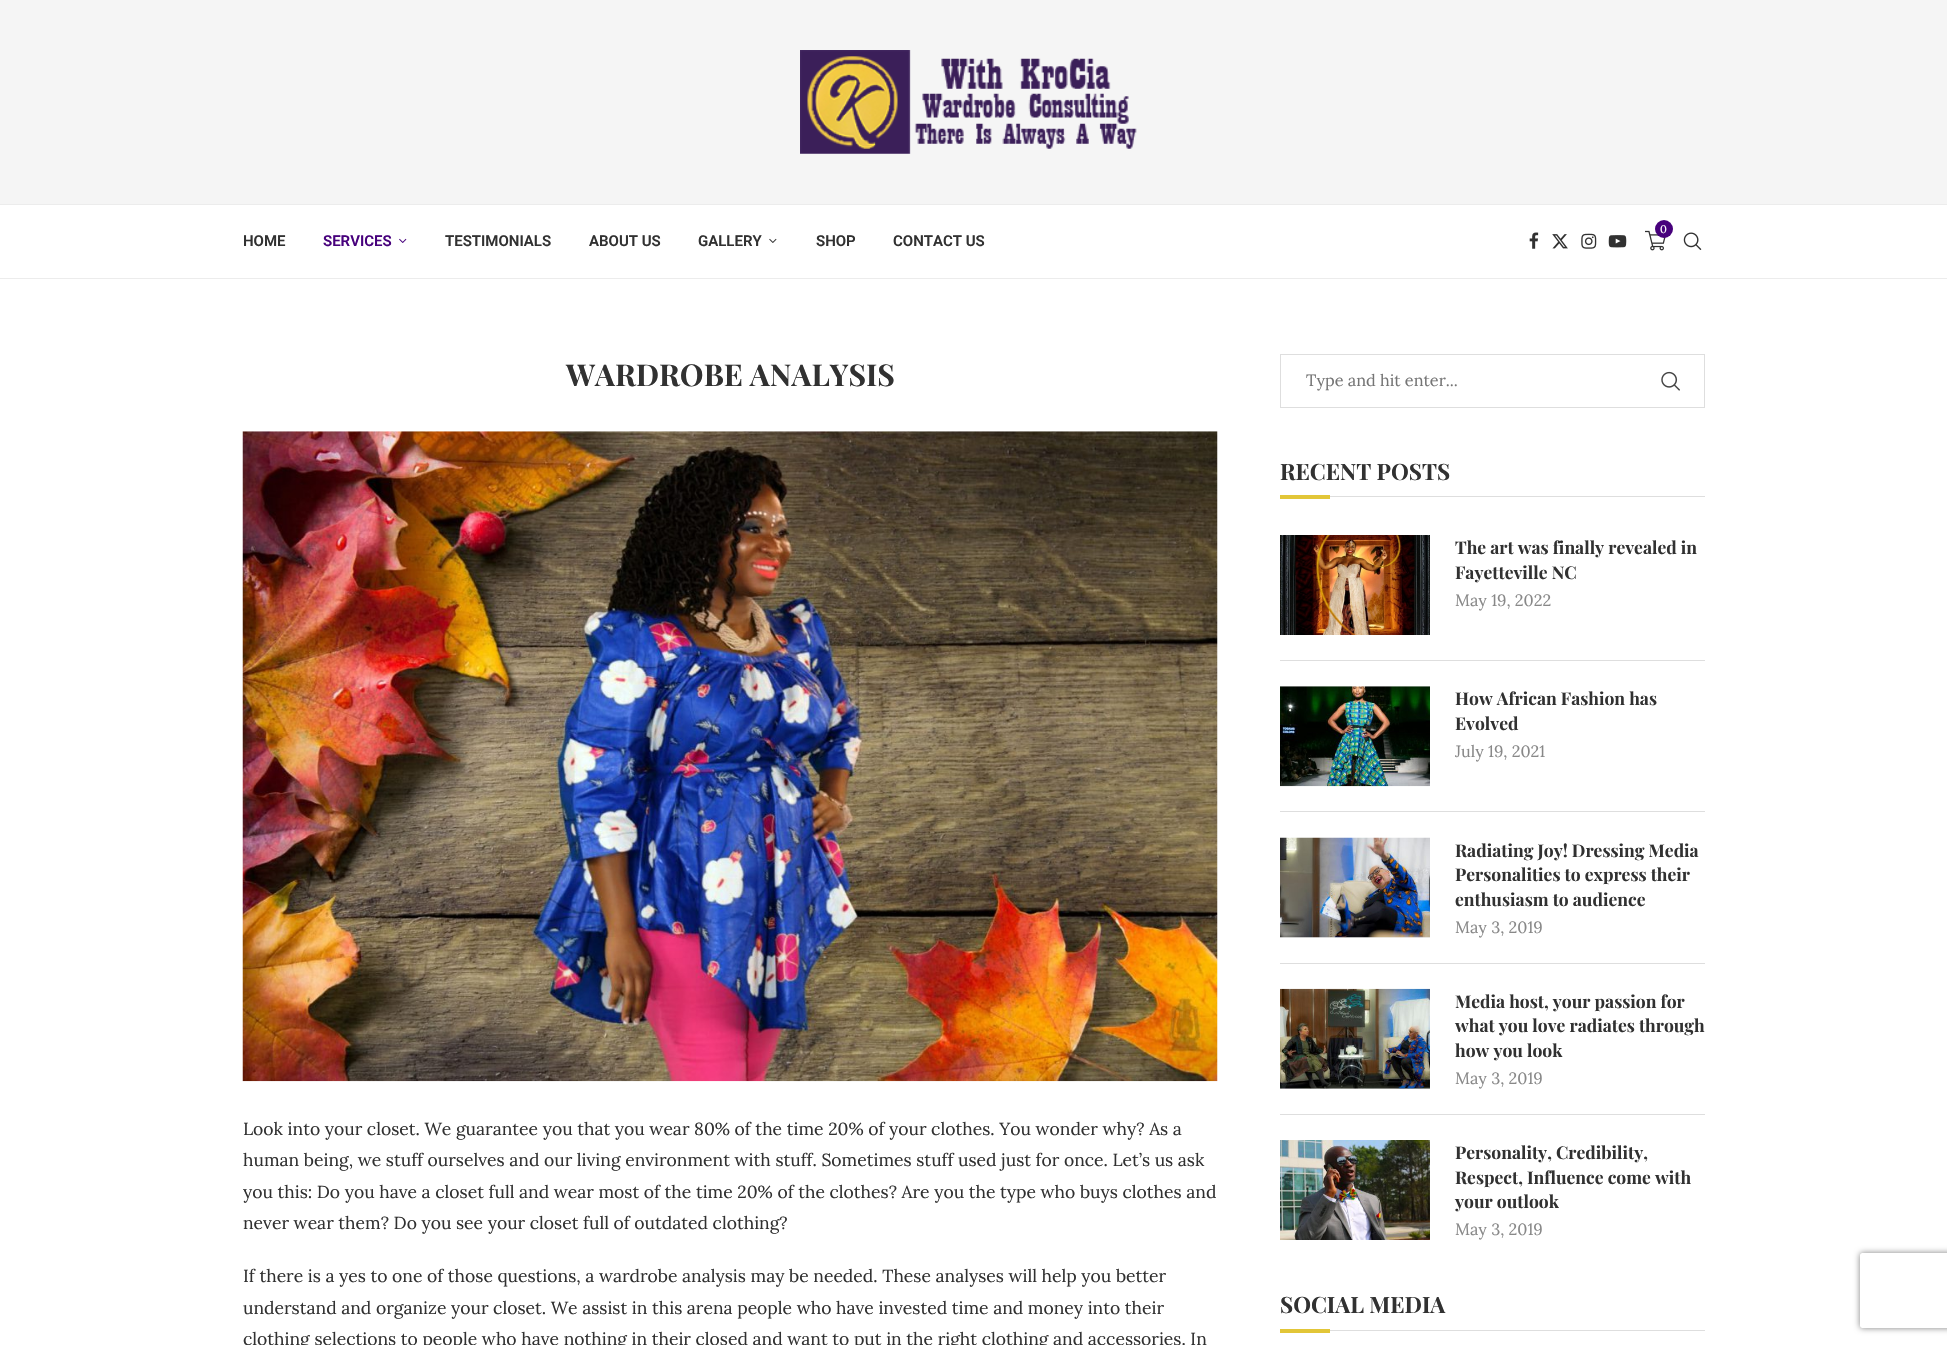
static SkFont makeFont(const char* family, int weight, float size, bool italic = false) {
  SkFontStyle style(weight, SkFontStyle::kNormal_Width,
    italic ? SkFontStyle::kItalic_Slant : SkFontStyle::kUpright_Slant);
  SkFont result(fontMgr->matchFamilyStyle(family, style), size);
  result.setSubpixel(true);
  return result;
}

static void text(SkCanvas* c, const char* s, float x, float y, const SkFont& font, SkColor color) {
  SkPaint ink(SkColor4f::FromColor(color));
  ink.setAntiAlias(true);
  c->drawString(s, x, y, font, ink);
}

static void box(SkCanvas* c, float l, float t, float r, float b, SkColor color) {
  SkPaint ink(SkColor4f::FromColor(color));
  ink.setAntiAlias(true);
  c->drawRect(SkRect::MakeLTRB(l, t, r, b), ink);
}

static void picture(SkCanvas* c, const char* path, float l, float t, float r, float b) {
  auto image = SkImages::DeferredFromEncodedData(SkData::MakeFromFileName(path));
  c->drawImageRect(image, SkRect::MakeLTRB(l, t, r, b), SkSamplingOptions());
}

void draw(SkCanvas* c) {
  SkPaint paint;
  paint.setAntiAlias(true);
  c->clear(0xffffffff);
  box(c, 0, 0, 1947, 204, 0xfff5f5f5);
  picture(c, "img_01.png", 800, 50, 1137, 154);
  box(c, 0, 204, 1947, 205, 0xffececec);
  box(c, 0, 278, 1947, 279, 0xffececec);
  picture(c, "img_02.png", 1645, 230, 1666, 251);
  paint.setColor(0xff47017c);
  c->drawCircle(1664, 229, 9, paint);
  SkFont face1 = makeFont("Lora", 400, 11);
  text(c, "0", 1660, 233, face1, 0xffffffff);
  SkFont face2 = makeFont("Roboto", 600, 15);
  text(c, "HOME", 243, 246, face2, 0xff313131);
  text(c, "SERVICES", 323, 246, face2, 0xff47017c);
  picture(c, "img_03.png", 399, 238, 407, 243);
  text(c, "TESTIMONIALS", 445, 246, face2, 0xff313131);
  text(c, "ABOUT US", 589, 246, face2, 0xff313131);
  text(c, "GALLERY", 698, 246, face2, 0xff313131);
  picture(c, "img_04.png", 769, 238, 777, 243);
  text(c, "SHOP", 816, 246, face2, 0xff313131);
  text(c, "CONTACT US", 893, 246, face2, 0xff313131);
  picture(c, "img_05.png", 1529, 232, 1539, 249);
  picture(c, "img_06.png", 1552, 234, 1568, 249);
  picture(c, "img_07.png", 1581, 233, 1597, 249);
  picture(c, "img_08.png", 1608, 235, 1627, 248);
  picture(c, "img_09.png", 1683, 232, 1702, 250);
  SkFont face3 = makeFont("Playfair Display", 700, 30);
  text(c, "WARDROBE ANALYSIS", 566, 386, face3, 0xff313131);
  picture(c, "img_10.png", 242, 431, 1218, 1082);
  SkFont face4 = makeFont("Lora", 400, 17.5f);
  text(c, "Look into your closet. We guarantee you that you wear 80% of the time 20% of your clothes. You wonder why? As a", 243, 1135, face4, 0xff313131);
  text(c, "human being, we stuff ourselves and our living environment with stuff. Sometimes stuff used just for once. Let’s us ask", 243, 1166, face4, 0xff313131);
  text(c, "you this: Do you have a closet full and wear most of the time 20% of the clothes? Are you the type who buys clothes and", 243, 1198, face4, 0xff313131);
  text(c, "never wear them? Do you see your closet full of outdated clothing?", 243, 1229, face4, 0xff313131);
  text(c, "If there is a yes to one of those questions, a wardrobe analysis may be needed. These analyses will help you better", 243, 1282, face4, 0xff313131);
  text(c, "understand and organize your closet. We assist in this arena people who have invested time and money into their", 243, 1314, face4, 0xff313131);
  text(c, "clothing selections to people who have nothing in their closed and want to put in the right clothing and accessories. In", 243, 1345, face4, 0xff313131);
  paint.setStyle(SkPaint::kStroke_Style);
  paint.setStrokeWidth(1);
  paint.setColor(0xffdedede);
  c->drawRect(SkRect::MakeLTRB(1280.5f, 354.5f, 1704.5f, 407.5f), paint);
  SkFont face5 = makeFont("Lora", 400, 16.25f);
  text(c, "Type and hit enter...", 1306, 386, face5, 0xff757575);
  picture(c, "img_11.png", 1661, 371, 1680, 391);
  box(c, 1330, 496, 1705, 497, 0xffdedede);
  SkFont face6 = makeFont("Playfair Display", 700, 22.5f);
  text(c, "RECENT POSTS", 1280, 480, face6, 0xff313131);
  box(c, 1280, 495, 1330, 499, 0xffe2c638);
  box(c, 1280, 660, 1705, 661, 0xffdedede);
  picture(c, "img_12.png", 1280, 535, 1430, 635);
  SkFont face7 = makeFont("Playfair Display", 700, 17.5f);
  text(c, "The art was finally revealed in", 1455, 554, face7, 0xff313131);
  text(c, "Fayetteville NC", 1455, 579, face7, 0xff313131);
  text(c, "May 19, 2022", 1455, 606, face5, 0xff888888);
  box(c, 1280, 811, 1705, 812, 0xffdedede);
  box(c, 1280, 686, 1430, 687, 0xfff5f5f5);
  picture(c, "img_13.png", 1280, 686, 1430, 787);
  text(c, "How African Fashion has", 1455, 705, face7, 0xff313131);
  text(c, "Evolved", 1455, 730, face7, 0xff313131);
  text(c, "July 19, 2021", 1455, 757, face5, 0xff888888);
  box(c, 1280, 963, 1705, 964, 0xffdedede);
  box(c, 1280, 937, 1430, 938, 0xfff5f5f5);
  picture(c, "img_14.png", 1280, 837, 1430, 938);
  text(c, "Radiating Joy! Dressing Media", 1455, 857, face7, 0xff313131);
  text(c, "Personalities to express their", 1455, 881, face7, 0xff313131);
  text(c, "enthusiasm to audience", 1455, 906, face7, 0xff313131);
  text(c, "May 3, 2019", 1455, 933, face5, 0xff888888);
  box(c, 1280, 1114, 1705, 1115, 0xffdedede);
  box(c, 1280, 1088, 1430, 1089, 0xfff5f5f5);
  picture(c, "img_15.png", 1280, 988, 1430, 1089);
  text(c, "Media host, your passion for", 1455, 1008, face7, 0xff313131);
  text(c, "what you love radiates through", 1455, 1032, face7, 0xff313131);
  text(c, "how you look", 1455, 1057, face7, 0xff313131);
  text(c, "May 3, 2019", 1455, 1084, face5, 0xff888888);
  picture(c, "img_16.png", 1280, 1140, 1430, 1240);
  text(c, "Personality, Credibility,", 1455, 1159, face7, 0xff313131);
  text(c, "Respect, Influence come with", 1455, 1184, face7, 0xff313131);
  text(c, "your outlook", 1455, 1208, face7, 0xff313131);
  text(c, "May 3, 2019", 1455, 1235, face5, 0xff888888);
  box(c, 1330, 1330, 1705, 1331, 0xffdedede);
  text(c, "SOCIAL MEDIA", 1280, 1313, face6, 0xff313131);
  box(c, 1280, 1329, 1330, 1333, 0xffe2c638);
  c->save();
  c->clipPath(SkPathBuilder(SkPathFillType::kEvenOdd).moveTo(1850, 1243).lineTo(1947, 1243).lineTo(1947, 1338).lineTo(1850, 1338).close().moveTo(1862.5f, 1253).lineTo(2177.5f, 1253).cubicTo(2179, 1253, 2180, 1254, 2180, 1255.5f).lineTo(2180, 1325.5f).cubicTo(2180, 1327, 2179, 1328, 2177.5f, 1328).lineTo(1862.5f, 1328).cubicTo(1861, 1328, 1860, 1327, 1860, 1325.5f).lineTo(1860, 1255.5f).cubicTo(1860, 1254, 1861, 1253, 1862.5f, 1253).close().detach(), true);
  paint.setStyle(SkPaint::kFill_Style);
  paint.setColor(0xff808080);
  paint.setMaskFilter(SkMaskFilter::MakeBlur(kNormal_SkBlurStyle, 3));
  c->drawRoundRect(SkRect::MakeLTRB(1860, 1253, 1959, 1328), 2.5f, 2.5f, paint);
  paint.setMaskFilter(nullptr);
  c->restore();
}
